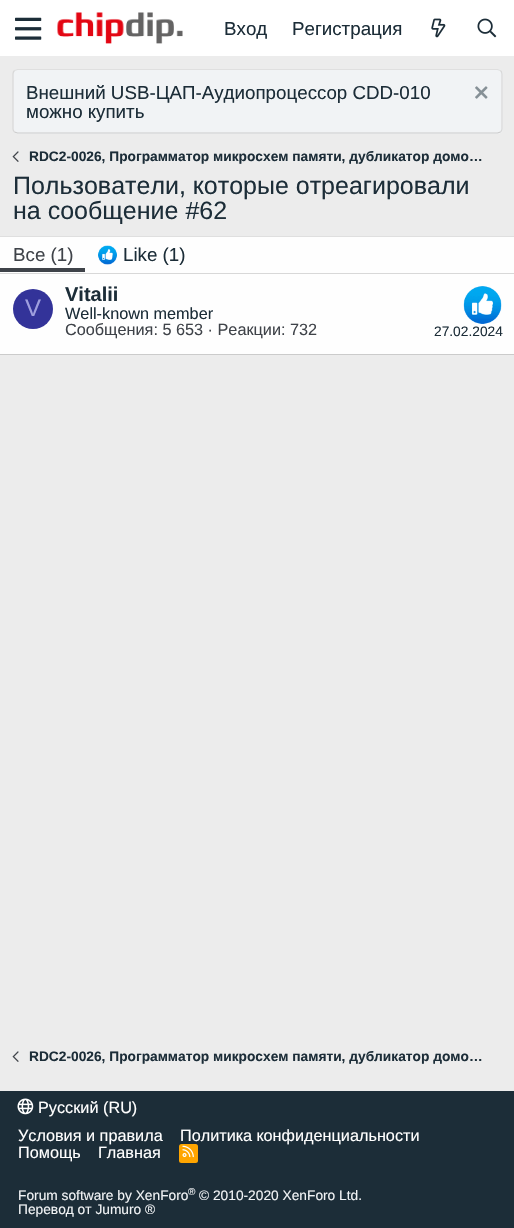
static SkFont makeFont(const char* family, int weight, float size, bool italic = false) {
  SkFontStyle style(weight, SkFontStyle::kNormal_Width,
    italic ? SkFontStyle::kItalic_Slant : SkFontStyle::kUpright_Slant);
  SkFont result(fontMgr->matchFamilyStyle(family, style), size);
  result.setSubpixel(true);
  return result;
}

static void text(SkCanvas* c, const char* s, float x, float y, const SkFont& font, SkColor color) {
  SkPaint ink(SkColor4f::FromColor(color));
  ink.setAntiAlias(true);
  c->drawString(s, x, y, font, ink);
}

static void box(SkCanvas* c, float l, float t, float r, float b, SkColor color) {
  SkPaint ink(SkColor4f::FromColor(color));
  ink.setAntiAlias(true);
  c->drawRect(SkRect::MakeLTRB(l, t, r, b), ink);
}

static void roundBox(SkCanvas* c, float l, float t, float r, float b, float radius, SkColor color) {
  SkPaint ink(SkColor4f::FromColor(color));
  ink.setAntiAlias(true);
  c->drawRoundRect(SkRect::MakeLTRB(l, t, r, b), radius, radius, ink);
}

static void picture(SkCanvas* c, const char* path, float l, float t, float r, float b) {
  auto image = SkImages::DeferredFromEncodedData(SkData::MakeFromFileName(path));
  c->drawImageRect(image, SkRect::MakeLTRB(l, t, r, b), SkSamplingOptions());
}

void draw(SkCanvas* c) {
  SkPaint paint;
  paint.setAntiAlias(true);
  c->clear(0xffececec);
  box(c, 0, 0, 514, 56, 0xffffffff);
  picture(c, "img_01.png", 15, 17, 42, 40);
  picture(c, "img_02.png", 57, 12, 183, 44);
  SkFont face1 = makeFont("Liberation Sans", 400, 18.75f);
  text(c, "Вход", 224, 35, face1, 0xff1c2d38);
  text(c, "Регистрация", 292, 35, face1, 0xff1c2d38);
  picture(c, "img_03.png", 431, 18, 446, 38);
  picture(c, "img_04.png", 477, 18, 497, 38);
  roundBox(c, 13, 69, 503, 134, 5, 0xfff1f3f5);
  paint.setStyle(SkPaint::kStroke_Style);
  paint.setStrokeWidth(1.2f);
  paint.setColor(0xffdfdfdf);
  c->drawPath(SkPathBuilder().moveTo(14.5f, 70.5f).lineTo(17.5f, 69.5f).lineTo(497.5f, 69.5f).lineTo(500.5f, 70.5f).detach(), paint);
  paint.setColor(0xffd8d8d8);
  c->drawPath(SkPathBuilder().moveTo(500.5f, 70.5f).cubicTo(501.5f, 71.5f, 502, 72.5f, 502, 74).lineTo(502, 129).cubicTo(502, 130, 501.5f, 131, 500.5f, 132).detach(), paint);
  paint.setColor(0xffcbcbcb);
  c->drawPath(SkPathBuilder().moveTo(500.5f, 132).lineTo(497.5f, 133).lineTo(17.5f, 133).lineTo(14.5f, 132).detach(), paint);
  paint.setColor(0xffd8d8d8);
  c->drawPath(SkPathBuilder().moveTo(14.5f, 132).cubicTo(13.5f, 131, 13, 130, 13, 129).lineTo(13, 74).cubicTo(13, 72.5f, 13.5f, 71.5f, 14.5f, 70.5f).detach(), paint);
  text(c, "Внешний USB-ЦАП-Аудиопроцессор CDD-010", 26, 99, face1, 0xff1c2d38);
  picture(c, "img_05.png", 475, 86, 488, 99);
  text(c, "можно купить", 26, 118, face1, 0xff1c2d38);
  picture(c, "img_06.png", 12, 151, 19, 162);
  SkFont face2 = makeFont("Liberation Sans", 700, 13.75f);
  text(c, "RDC2-0026, Программатор микросхем памяти, дубликатор домо…", 29, 161, face2, 0xff1c2d38);
  SkFont face3 = makeFont("Liberation Sans", 400, 25);
  text(c, "Пользователи, которые отреагировали", 13, 194, face3, 0xff1c2d38);
  text(c, "на сообщение #62", 13, 219, face3, 0xff1c2d38);
  box(c, 0, 237, 514, 354, 0xfffefefe);
  box(c, 0, 236, 514, 237, 0xffdfdfdf);
  box(c, 0, 354, 514, 355, 0xffcbcbcb);
  box(c, 0, 273, 514, 274, 0xffd8d8d8);
  box(c, 0, 268, 85, 272, 0xff3f4349);
  text(c, "Все (1)", 13, 261, face1, 0xff3f4349);
  picture(c, "img_07.png", 98, 245, 117, 265);
  text(c, "Like (1)", 123, 261, face1, 0xff1c2d38);
  paint.setStyle(SkPaint::kFill_Style);
  paint.setColor(0xff333399);
  c->drawCircle(33, 309, 20, paint);
  SkFont face4 = makeFont("Liberation Sans", 400, 24);
  text(c, "V", 25, 316, face4, 0xff9f9fdf);
  SkFont face5 = makeFont("Liberation Sans", 700, 20);
  text(c, "Vitalii", 65, 301, face5, 0xff1c2d38);
  SkFont face6 = makeFont("Liberation Sans", 400, 16.25f);
  text(c, "Well-known member", 65, 319, face6, 0xff1c2d38);
  text(c, "Сообщения: 5 653 · Реакции: 732", 65, 335, face6, 0xff3f4349);
  picture(c, "img_08.png", 463, 286, 502, 324);
  SkFont face7 = makeFont("Liberation Sans", 400, 13.75f);
  text(c, "27.02.2024", 434, 336, face7, 0xff1c2d38);
  picture(c, "img_06.png", 12, 1051, 19, 1062);
  text(c, "RDC2-0026, Программатор микросхем памяти, дубликатор домо…", 29, 1061, face2, 0xff1c2d38);
  box(c, 0, 1091, 514, 1228, 0xff1c2d38);
  picture(c, "img_09.png", 17, 1098, 34, 1115);
  text(c, "Русский (RU)", 38, 1113, face6, 0xffffffff);
  text(c, "Условия и правила", 18, 1141, face6, 0xffffffff);
  text(c, "Политика конфиденциальности", 180, 1141, face6, 0xffffffff);
  text(c, "Помощь", 18, 1158, face6, 0xffffffff);
  text(c, "Главная", 98, 1158, face6, 0xffffffff);
  roundBox(c, 179, 1144, 198, 1163, 2.5f, 0xffffa500);
  picture(c, "img_10.png", 182, 1145, 194, 1158);
  text(c, "Forum software by XenForo", 18, 1200, face7, 0xfff1f3f5);
  SkFont face8 = makeFont("Liberation Sans", 400, 10);
  text(c, "®", 188, 1195, face8, 0xfff1f3f5);
  text(c, "© 2010-2020 XenForo Ltd.", 199, 1200, face7, 0xfff1f3f5);
  text(c, "Перевод от Jumuro ®", 18, 1214, face7, 0xfff1f3f5);
}
